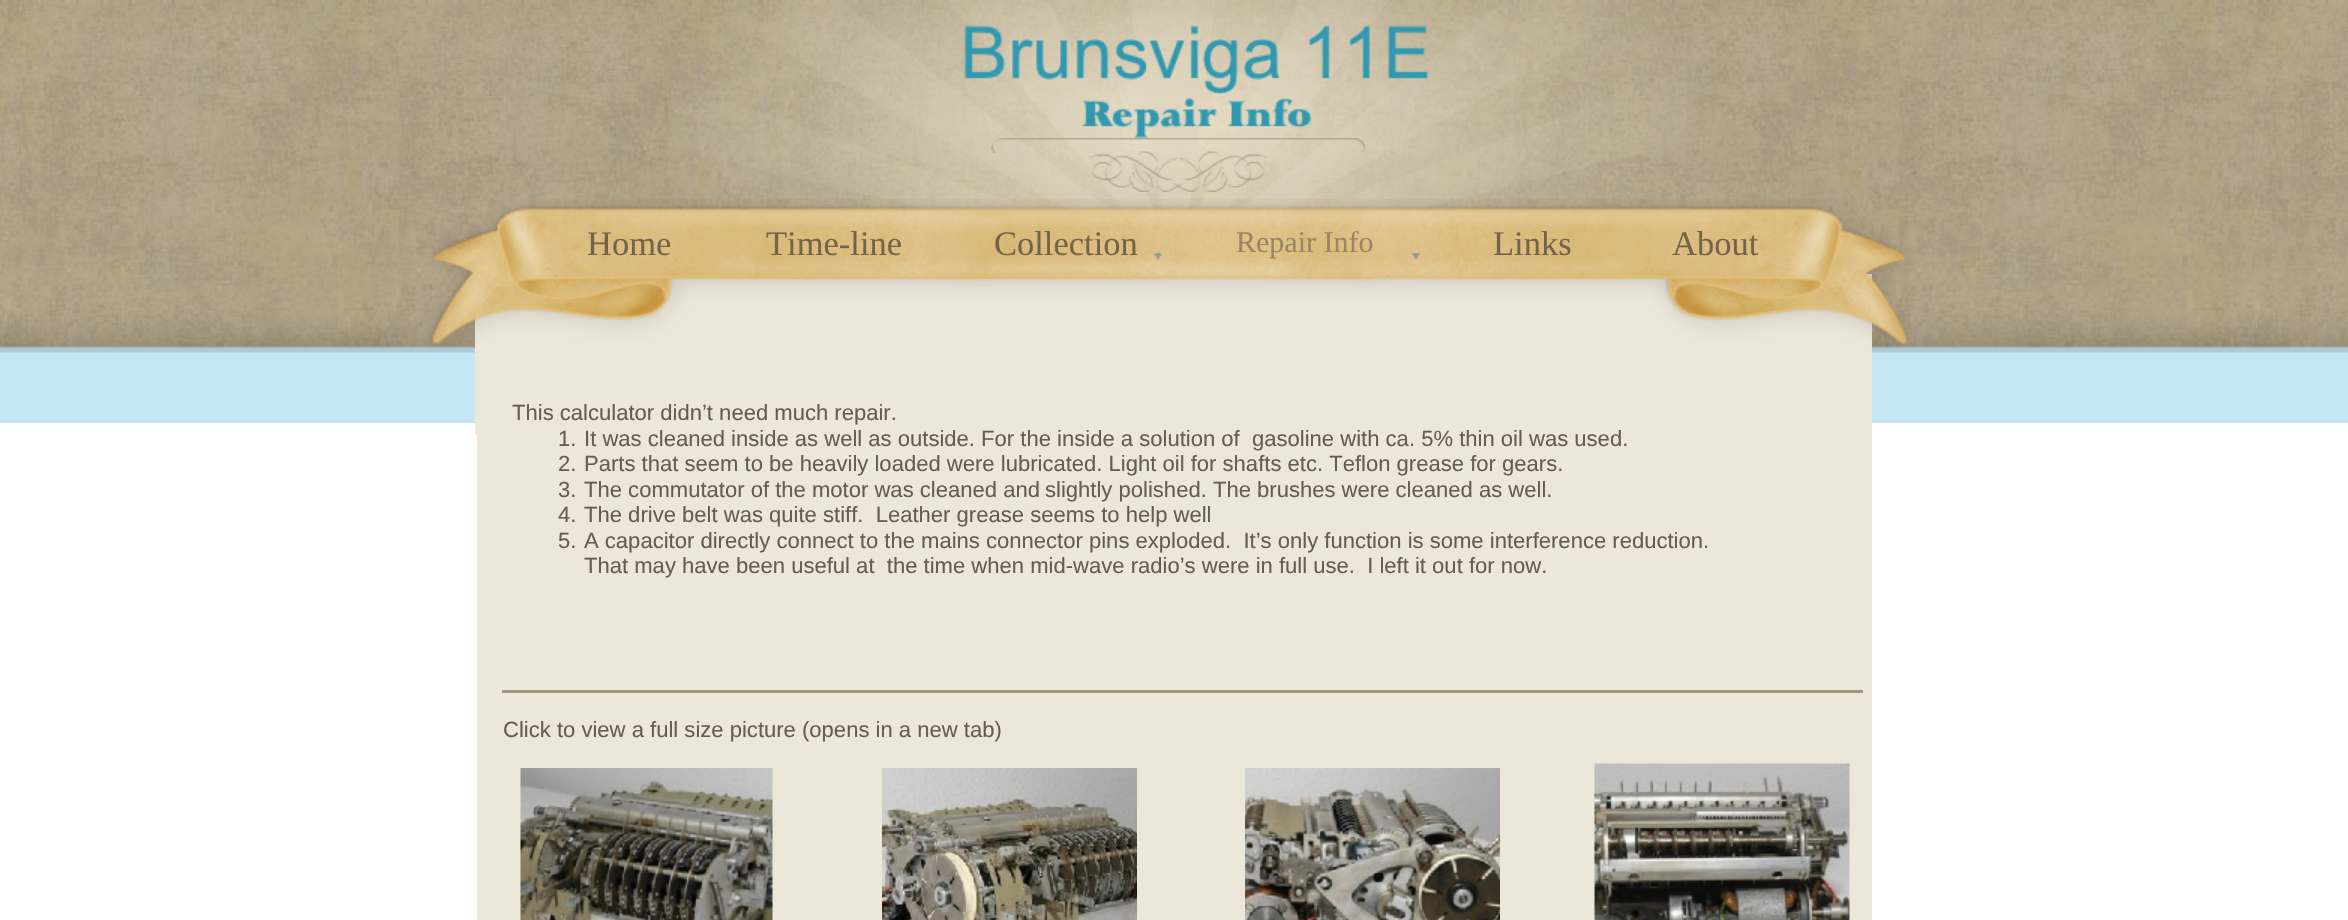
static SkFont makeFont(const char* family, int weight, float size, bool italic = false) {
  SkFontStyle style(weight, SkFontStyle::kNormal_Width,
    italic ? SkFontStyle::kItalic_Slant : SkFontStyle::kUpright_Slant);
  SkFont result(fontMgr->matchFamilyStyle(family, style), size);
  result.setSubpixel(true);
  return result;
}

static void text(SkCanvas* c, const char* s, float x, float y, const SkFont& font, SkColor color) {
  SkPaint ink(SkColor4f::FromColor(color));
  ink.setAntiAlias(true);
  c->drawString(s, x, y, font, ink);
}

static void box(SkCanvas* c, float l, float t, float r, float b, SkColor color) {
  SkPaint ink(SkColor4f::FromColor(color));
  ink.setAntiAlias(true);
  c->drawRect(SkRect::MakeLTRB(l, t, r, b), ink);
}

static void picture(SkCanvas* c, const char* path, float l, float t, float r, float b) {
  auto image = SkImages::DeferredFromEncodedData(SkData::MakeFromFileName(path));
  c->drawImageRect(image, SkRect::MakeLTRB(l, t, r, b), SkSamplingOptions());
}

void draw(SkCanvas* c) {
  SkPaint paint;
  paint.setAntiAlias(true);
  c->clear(0xffffffff);
  picture(c, "img_01.png", 0, 0, 2348, 423);
  picture(c, "img_02.png", 668, 0, 1687, 214);
  picture(c, "img_03.png", 964, 25, 1429, 94);
  picture(c, "img_04.png", 1082, 97, 1311, 138);
  picture(c, "img_06.png", 1089, 151, 1267, 192);
  picture(c, "img_05.png", 991, 138, 1365, 153);
  box(c, 475, 274, 1872, 435, 0xffede7da);
  picture(c, "img_07.png", 429, 199, 1911, 347);
  SkFont face1 = makeFont("Liberation Serif", 400, 34.5f);
  text(c, "Home", 587, 255, face1, 0xff736449);
  text(c, "Time-line", 766, 255, face1, 0xff736449);
  picture(c, "img_08.png", 1153, 251, 1163, 261);
  text(c, "Collection", 994, 255, face1, 0xff736449);
  picture(c, "img_09.png", 1411, 252, 1421, 261);
  SkFont face2 = makeFont("Liberation Serif", 400, 30);
  text(c, "Repair Info", 1236, 252, face2, 0xff998763);
  text(c, "Links", 1493, 255, face1, 0xff736449);
  text(c, "About", 1672, 255, face1, 0xff736449);
  SkFont face3 = makeFont("Liberation Sans", 400, 22.05f);
  text(c, "This calculator didn’t need much repair.", 512, 420, face3, 0xff655e50);
  box(c, 477, 435, 1872, 920, 0xffede7da);
  SkFont face4 = makeFont("Liberation Sans", 400, 22);
  text(c, "1.", 558, 446, face4, 0xff655e50);
  text(c, "It was cleaned inside as well as outside. For the inside a solution of  gasoline with ca. 5% thin oil was used.", 584, 446, face3, 0xff655e50);
  text(c, "2.", 558, 471, face4, 0xff655e50);
  text(c, "Parts that seem to be heavily loaded were lubricated. Light oil for shafts etc. Teflon grease for gears.", 584, 471, face3, 0xff655e50);
  text(c, "3.", 558, 497, face4, 0xff655e50);
  text(c, "The commutator of the motor was cleaned and", 584, 497, face3, 0xff655e50);
  text(c, "slightly polished. The brushes were cleaned as well.", 1045, 497, face3, 0xff655e50);
  text(c, "4.", 558, 522, face4, 0xff655e50);
  text(c, "The drive belt was quite stiff.  Leather grease seems to help well", 584, 522, face3, 0xff655e50);
  text(c, "5.", 558, 548, face4, 0xff655e50);
  text(c, "A capacitor directly connect to the mains connector pins exploded.  It’s only function is some interference reduction.", 584, 548, face3, 0xff655e50);
  text(c, "That may have been useful at  the time when mid-wave radio’s were in full use.  I left it out for now.", 584, 573, face3, 0xff655e50);
  box(c, 502, 690, 1863, 693, 0xffa19881);
  text(c, "Click to view a full size picture (opens in a new tab)", 503, 737, face3, 0xff655e50);
  picture(c, "img_10.png", 520, 768, 773, 920);
  picture(c, "img_11.png", 882, 768, 1137, 920);
  picture(c, "img_12.png", 1245, 768, 1500, 920);
  picture(c, "img_13.png", 1594, 763, 1850, 920);
}
